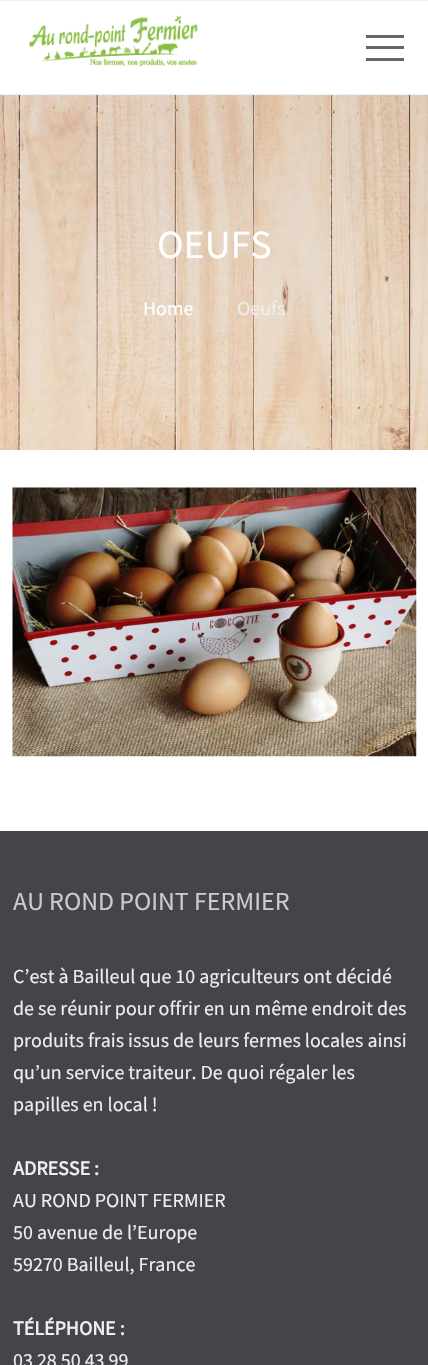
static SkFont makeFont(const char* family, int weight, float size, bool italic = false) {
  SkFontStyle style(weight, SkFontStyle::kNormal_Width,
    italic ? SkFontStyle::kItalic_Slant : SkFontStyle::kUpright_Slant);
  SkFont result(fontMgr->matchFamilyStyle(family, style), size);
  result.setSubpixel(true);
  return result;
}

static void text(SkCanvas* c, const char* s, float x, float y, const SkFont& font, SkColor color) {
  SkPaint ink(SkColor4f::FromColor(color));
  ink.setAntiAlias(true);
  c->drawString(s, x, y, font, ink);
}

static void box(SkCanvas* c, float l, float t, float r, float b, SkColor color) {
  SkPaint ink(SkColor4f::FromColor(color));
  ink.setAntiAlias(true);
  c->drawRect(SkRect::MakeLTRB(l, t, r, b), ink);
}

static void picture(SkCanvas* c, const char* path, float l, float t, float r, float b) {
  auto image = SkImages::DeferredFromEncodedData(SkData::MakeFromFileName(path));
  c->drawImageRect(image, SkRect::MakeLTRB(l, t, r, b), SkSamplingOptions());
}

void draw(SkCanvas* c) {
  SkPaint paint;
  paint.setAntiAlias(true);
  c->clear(0xfff0f0f0);
  box(c, 0, 1, 428, 94, 0xffffffff);
  picture(c, "img_01.png", 29, 15, 198, 67);
  box(c, 366, 35, 404, 38, 0xff666666);
  box(c, 366, 58, 404, 61, 0xff666666);
  box(c, 366, 46, 404, 49, 0xff666666);
  picture(c, "img_02.png", 0, 95, 428, 450);
  SkFont face1 = makeFont("Source Sans Pro", 400, 40);
  text(c, "OEUFS", 157, 258, face1, 0xffffffff);
  SkFont face2 = makeFont("Source Sans Pro", 400, 20);
  text(c, "Home", 143, 315, face2, 0xffffffff);
  text(c, "Oeufs", 237, 315, face2, 0xffeeeeee);
  box(c, 0, 450, 428, 831, 0xffffffff);
  picture(c, "img_03.png", 12, 487, 417, 757);
  box(c, 0, 831, 428, 1365, 0xff444449);
  SkFont face3 = makeFont("Source Sans Pro", 400, 26);
  text(c, "AU ROND POINT FERMIER", 13, 910, face3, 0xffcccccd);
  text(c, "C’est à Bailleul que 10 agriculteurs ont décidé", 13, 983, face2, 0xffeeeeee);
  text(c, "de se réunir pour offrir en un même endroit des", 13, 1015, face2, 0xffeeeeee);
  text(c, "produits frais issus de leurs fermes locales ainsi", 13, 1047, face2, 0xffeeeeee);
  text(c, "qu’un service traiteur. De quoi régaler les", 13, 1079, face2, 0xffeeeeee);
  text(c, "papilles en local !", 13, 1111, face2, 0xffeeeeee);
  SkFont face4 = makeFont("Source Sans Pro", 700, 20);
  text(c, "ADRESSE :", 13, 1175, face4, 0xffeeeeee);
  text(c, "AU ROND POINT FERMIER", 13, 1207, face2, 0xffeeeeee);
  text(c, "50 avenue de l’Europe", 13, 1239, face2, 0xffeeeeee);
  text(c, "59270 Bailleul, France", 13, 1271, face2, 0xffeeeeee);
  text(c, "TÉLÉPHONE :", 13, 1335, face4, 0xffeeeeee);
  text(c, "03 28 50 43 99", 13, 1367, face2, 0xffeeeeee);
}
